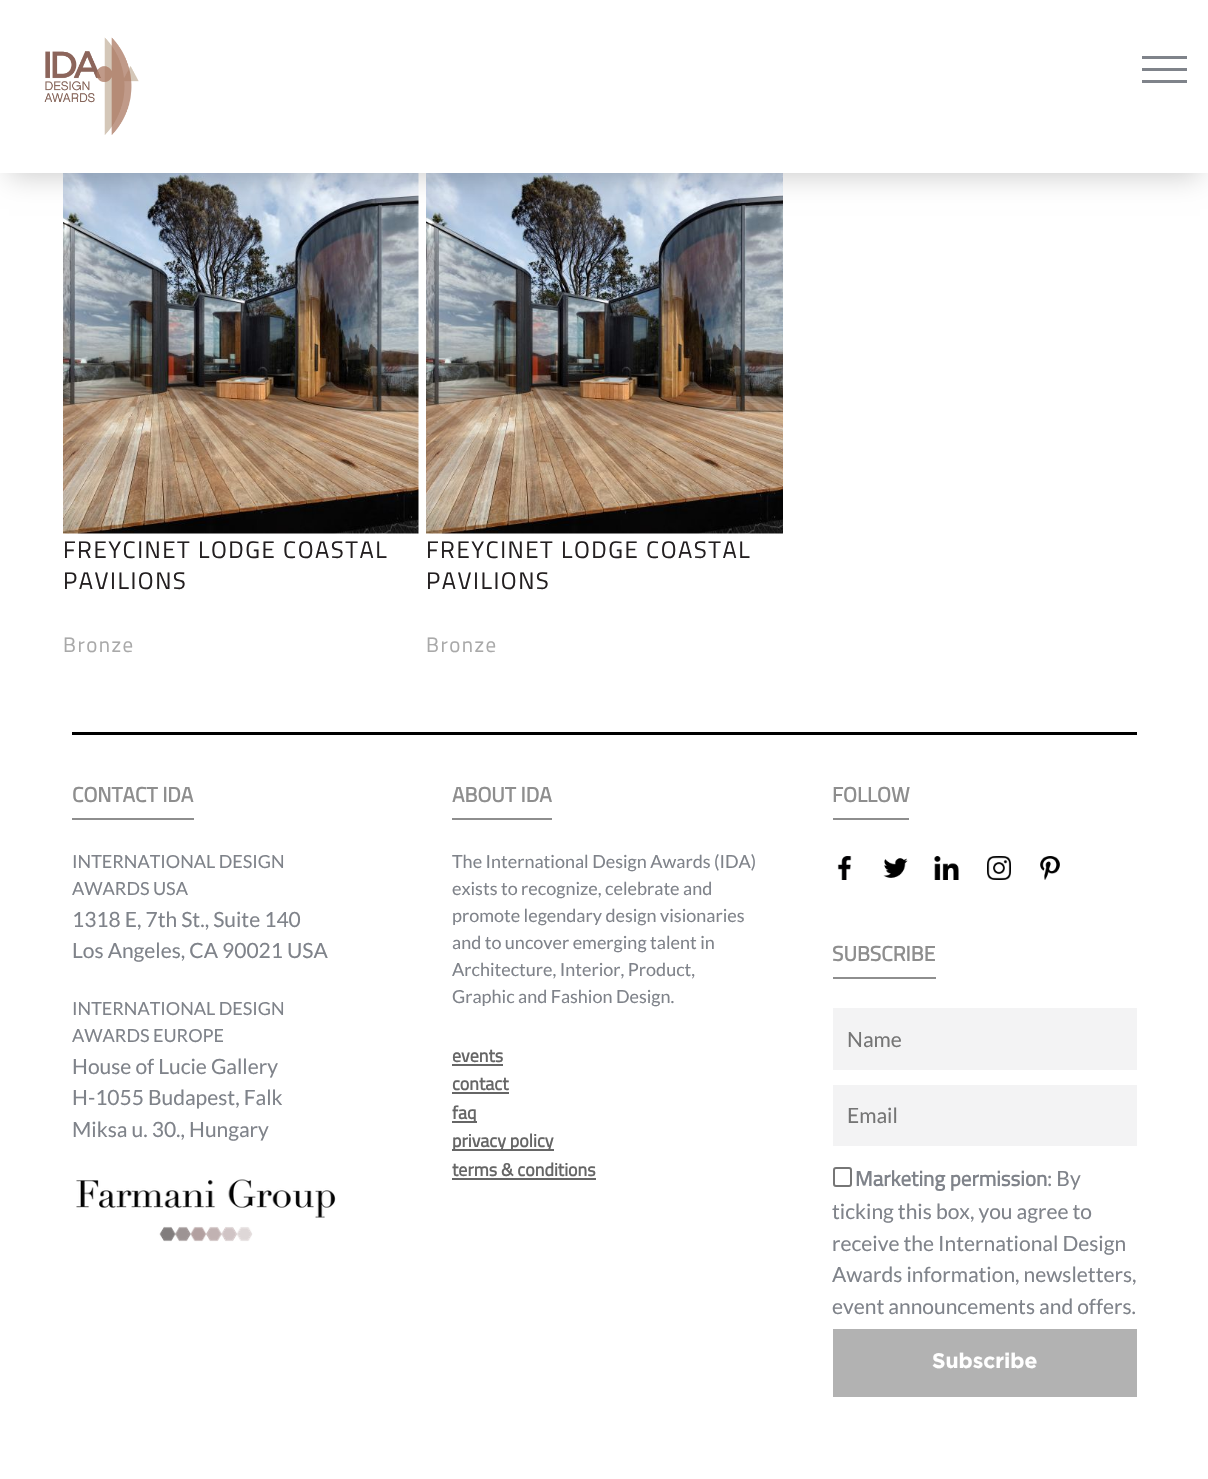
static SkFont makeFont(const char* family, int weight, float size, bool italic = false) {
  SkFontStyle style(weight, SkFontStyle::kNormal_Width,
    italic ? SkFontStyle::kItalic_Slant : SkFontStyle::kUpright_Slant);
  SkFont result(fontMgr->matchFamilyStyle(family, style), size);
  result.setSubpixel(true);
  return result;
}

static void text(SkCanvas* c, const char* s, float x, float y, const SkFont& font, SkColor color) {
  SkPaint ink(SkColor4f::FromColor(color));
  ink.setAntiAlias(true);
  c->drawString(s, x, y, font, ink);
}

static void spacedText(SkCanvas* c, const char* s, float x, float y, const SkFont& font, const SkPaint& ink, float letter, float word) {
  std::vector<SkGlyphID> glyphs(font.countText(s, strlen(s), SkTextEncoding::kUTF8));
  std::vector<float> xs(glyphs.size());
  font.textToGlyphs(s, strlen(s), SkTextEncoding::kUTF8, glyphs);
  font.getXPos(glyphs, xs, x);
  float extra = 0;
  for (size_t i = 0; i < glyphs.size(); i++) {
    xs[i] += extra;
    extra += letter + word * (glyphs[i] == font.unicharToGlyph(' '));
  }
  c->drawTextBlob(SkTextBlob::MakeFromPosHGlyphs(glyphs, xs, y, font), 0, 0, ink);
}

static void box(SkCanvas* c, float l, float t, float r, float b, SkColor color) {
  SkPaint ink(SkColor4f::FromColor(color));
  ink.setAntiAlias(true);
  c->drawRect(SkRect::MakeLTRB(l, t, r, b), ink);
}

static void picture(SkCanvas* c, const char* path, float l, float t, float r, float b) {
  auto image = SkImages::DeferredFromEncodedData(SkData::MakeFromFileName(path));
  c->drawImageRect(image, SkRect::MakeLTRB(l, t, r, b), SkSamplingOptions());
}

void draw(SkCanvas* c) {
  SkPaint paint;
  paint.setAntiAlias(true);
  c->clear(0xffffffff);
  picture(c, "img_02.png", 63, 173, 419, 534);
  picture(c, "img_03.png", 426, 173, 783, 534);
  paint.setColor(0x33000000);
  paint.setMaskFilter(SkMaskFilter::MakeBlur(kNormal_SkBlurStyle, 13.5f));
  c->drawRect(SkRect::MakeLTRB(9, 21, 1200, 176), paint);
  paint.setMaskFilter(nullptr);
  box(c, 0, 0, 1208, 173, 0xffffffff);
  picture(c, "img_01.png", 44, 37, 139, 135);
  box(c, 1142, 56, 1187, 59, 0xff7f838a);
  box(c, 1142, 68, 1187, 71, 0xff7f838a);
  box(c, 1142, 80, 1187, 83, 0xff7f838a);
  SkFont face1 = makeFont("Cairo", 400, 24);
  paint.setColor(0xff231f20);
  spacedText(c, "FREYCINET LODGE COASTAL", 63, 558, face1, paint, 1.5f, 0);
  spacedText(c, "PAVILIONS", 63, 589, face1, paint, 1.5f, 0);
  SkFont face2 = makeFont("Cairo", 400, 21);
  paint.setColor(0xffa9a9a9);
  spacedText(c, "Bronze", 63, 652, face2, paint, 1.5f, 0);
  paint.setColor(0xff231f20);
  spacedText(c, "FREYCINET LODGE COASTAL", 426, 558, face1, paint, 1.5f, 0);
  spacedText(c, "PAVILIONS", 426, 589, face1, paint, 1.5f, 0);
  paint.setColor(0xffa9a9a9);
  spacedText(c, "Bronze", 426, 652, face2, paint, 1.5f, 0);
  box(c, 72, 732, 1137, 735, 0xff000000);
  SkFont face3 = makeFont("Cairo", 700, 21);
  text(c, "CONTACT IDA", 72, 802, face3, 0xff8e8e8e);
  box(c, 72, 818, 194, 820, 0xff8e8e8e);
  SkFont face4 = makeFont("Lato", 400, 18);
  text(c, "INTERNATIONAL DESIGN", 72, 868, face4, 0xff7f838a);
  text(c, "AWARDS USA", 72, 895, face4, 0xff7f838a);
  SkFont face5 = makeFont("Lato", 400, 21);
  text(c, "1318 E, 7th St., Suite 140", 72, 927, face5, 0xff7f838a);
  text(c, "Los Angeles, CA 90021 USA", 72, 958, face5, 0xff7f838a);
  text(c, "INTERNATIONAL DESIGN", 72, 1015, face4, 0xff7f838a);
  text(c, "AWARDS EUROPE", 72, 1042, face4, 0xff7f838a);
  text(c, "House of Lucie Gallery", 72, 1074, face5, 0xff7f838a);
  text(c, "H-1055 Budapest, Falk", 72, 1105, face5, 0xff7f838a);
  text(c, "Miksa u. 30., Hungary", 72, 1137, face5, 0xff7f838a);
  picture(c, "img_04.png", 76, 1179, 336, 1242);
  text(c, "ABOUT IDA", 452, 802, face3, 0xff8e8e8e);
  box(c, 452, 818, 552, 820, 0xff8e8e8e);
  text(c, "The International Design Awards (IDA)", 452, 868, face4, 0xff7f838a);
  text(c, "exists to recognize, celebrate and", 452, 895, face4, 0xff7f838a);
  text(c, "promote legendary design visionaries", 452, 922, face4, 0xff7f838a);
  text(c, "and to uncover emerging talent in", 452, 949, face4, 0xff7f838a);
  text(c, "Architecture, Interior, Product,", 452, 976, face4, 0xff7f838a);
  text(c, "Graphic and Fashion Design.", 452, 1003, face4, 0xff7f838a);
  SkFont face6 = makeFont("Cairo", 700, 18);
  text(c, "events", 452, 1062, face6, 0xff666666);
  box(c, 452, 1064, 503, 1066, 0xff666666);
  text(c, "contact", 452, 1090, face6, 0xff666666);
  box(c, 452, 1092, 509, 1094, 0xff666666);
  box(c, 452, 1121, 477, 1123, 0xff666666);
  text(c, "faq", 452, 1119, face6, 0xff666666);
  box(c, 452, 1149, 554, 1151, 0xff666666);
  text(c, "privacy policy", 452, 1147, face6, 0xff666666);
  text(c, "terms & conditions", 452, 1176, face6, 0xff666666);
  box(c, 452, 1178, 596, 1180, 0xff666666);
  text(c, "FOLLOW", 832, 802, face3, 0xff8e8e8e);
  box(c, 833, 818, 909, 820, 0xff8e8e8e);
  picture(c, "img_05.png", 837, 856, 852, 880);
  picture(c, "img_06.png", 883, 858, 908, 878);
  picture(c, "img_07.png", 934, 856, 959, 880);
  picture(c, "img_08.png", 987, 856, 1011, 880);
  picture(c, "img_09.png", 1040, 856, 1060, 880);
  text(c, "SUBSCRIBE", 832, 961, face3, 0xff8e8e8e);
  box(c, 833, 977, 936, 979, 0xff8e8e8e);
  box(c, 833, 1008, 1137, 1070, 0xfff3f3f4);
  text(c, "Name", 847, 1047, face5, 0xff757575);
  box(c, 833, 1085, 1137, 1146, 0xfff3f3f4);
  text(c, "Email", 847, 1123, face5, 0xff757575);
  paint.setStyle(SkPaint::kStroke_Style);
  paint.setStrokeWidth(2);
  paint.setColor(0xff767676);
  c->drawRoundRect(SkRect::MakeLTRB(834, 1168, 851, 1186), 2, 2, paint);
  text(c, "Marketing permission", 855, 1186, face3, 0xff7f838a);
  text(c, ": By", 1047, 1186, face5, 0xff7f838a);
  text(c, "ticking this box, you agree to", 832, 1219, face5, 0xff7f838a);
  text(c, "receive the International Design", 832, 1251, face5, 0xff7f838a);
  text(c, "Awards information, newsletters,", 832, 1282, face5, 0xff7f838a);
  text(c, "event announcements and offers.", 832, 1314, face5, 0xff7f838a);
  box(c, 833, 1329, 1137, 1397, 0xffb2b2b2);
  SkFont face7 = makeFont("Gotham", 700, 21);
  text(c, "Subscribe", 932, 1368, face7, 0xffffffff);
}
